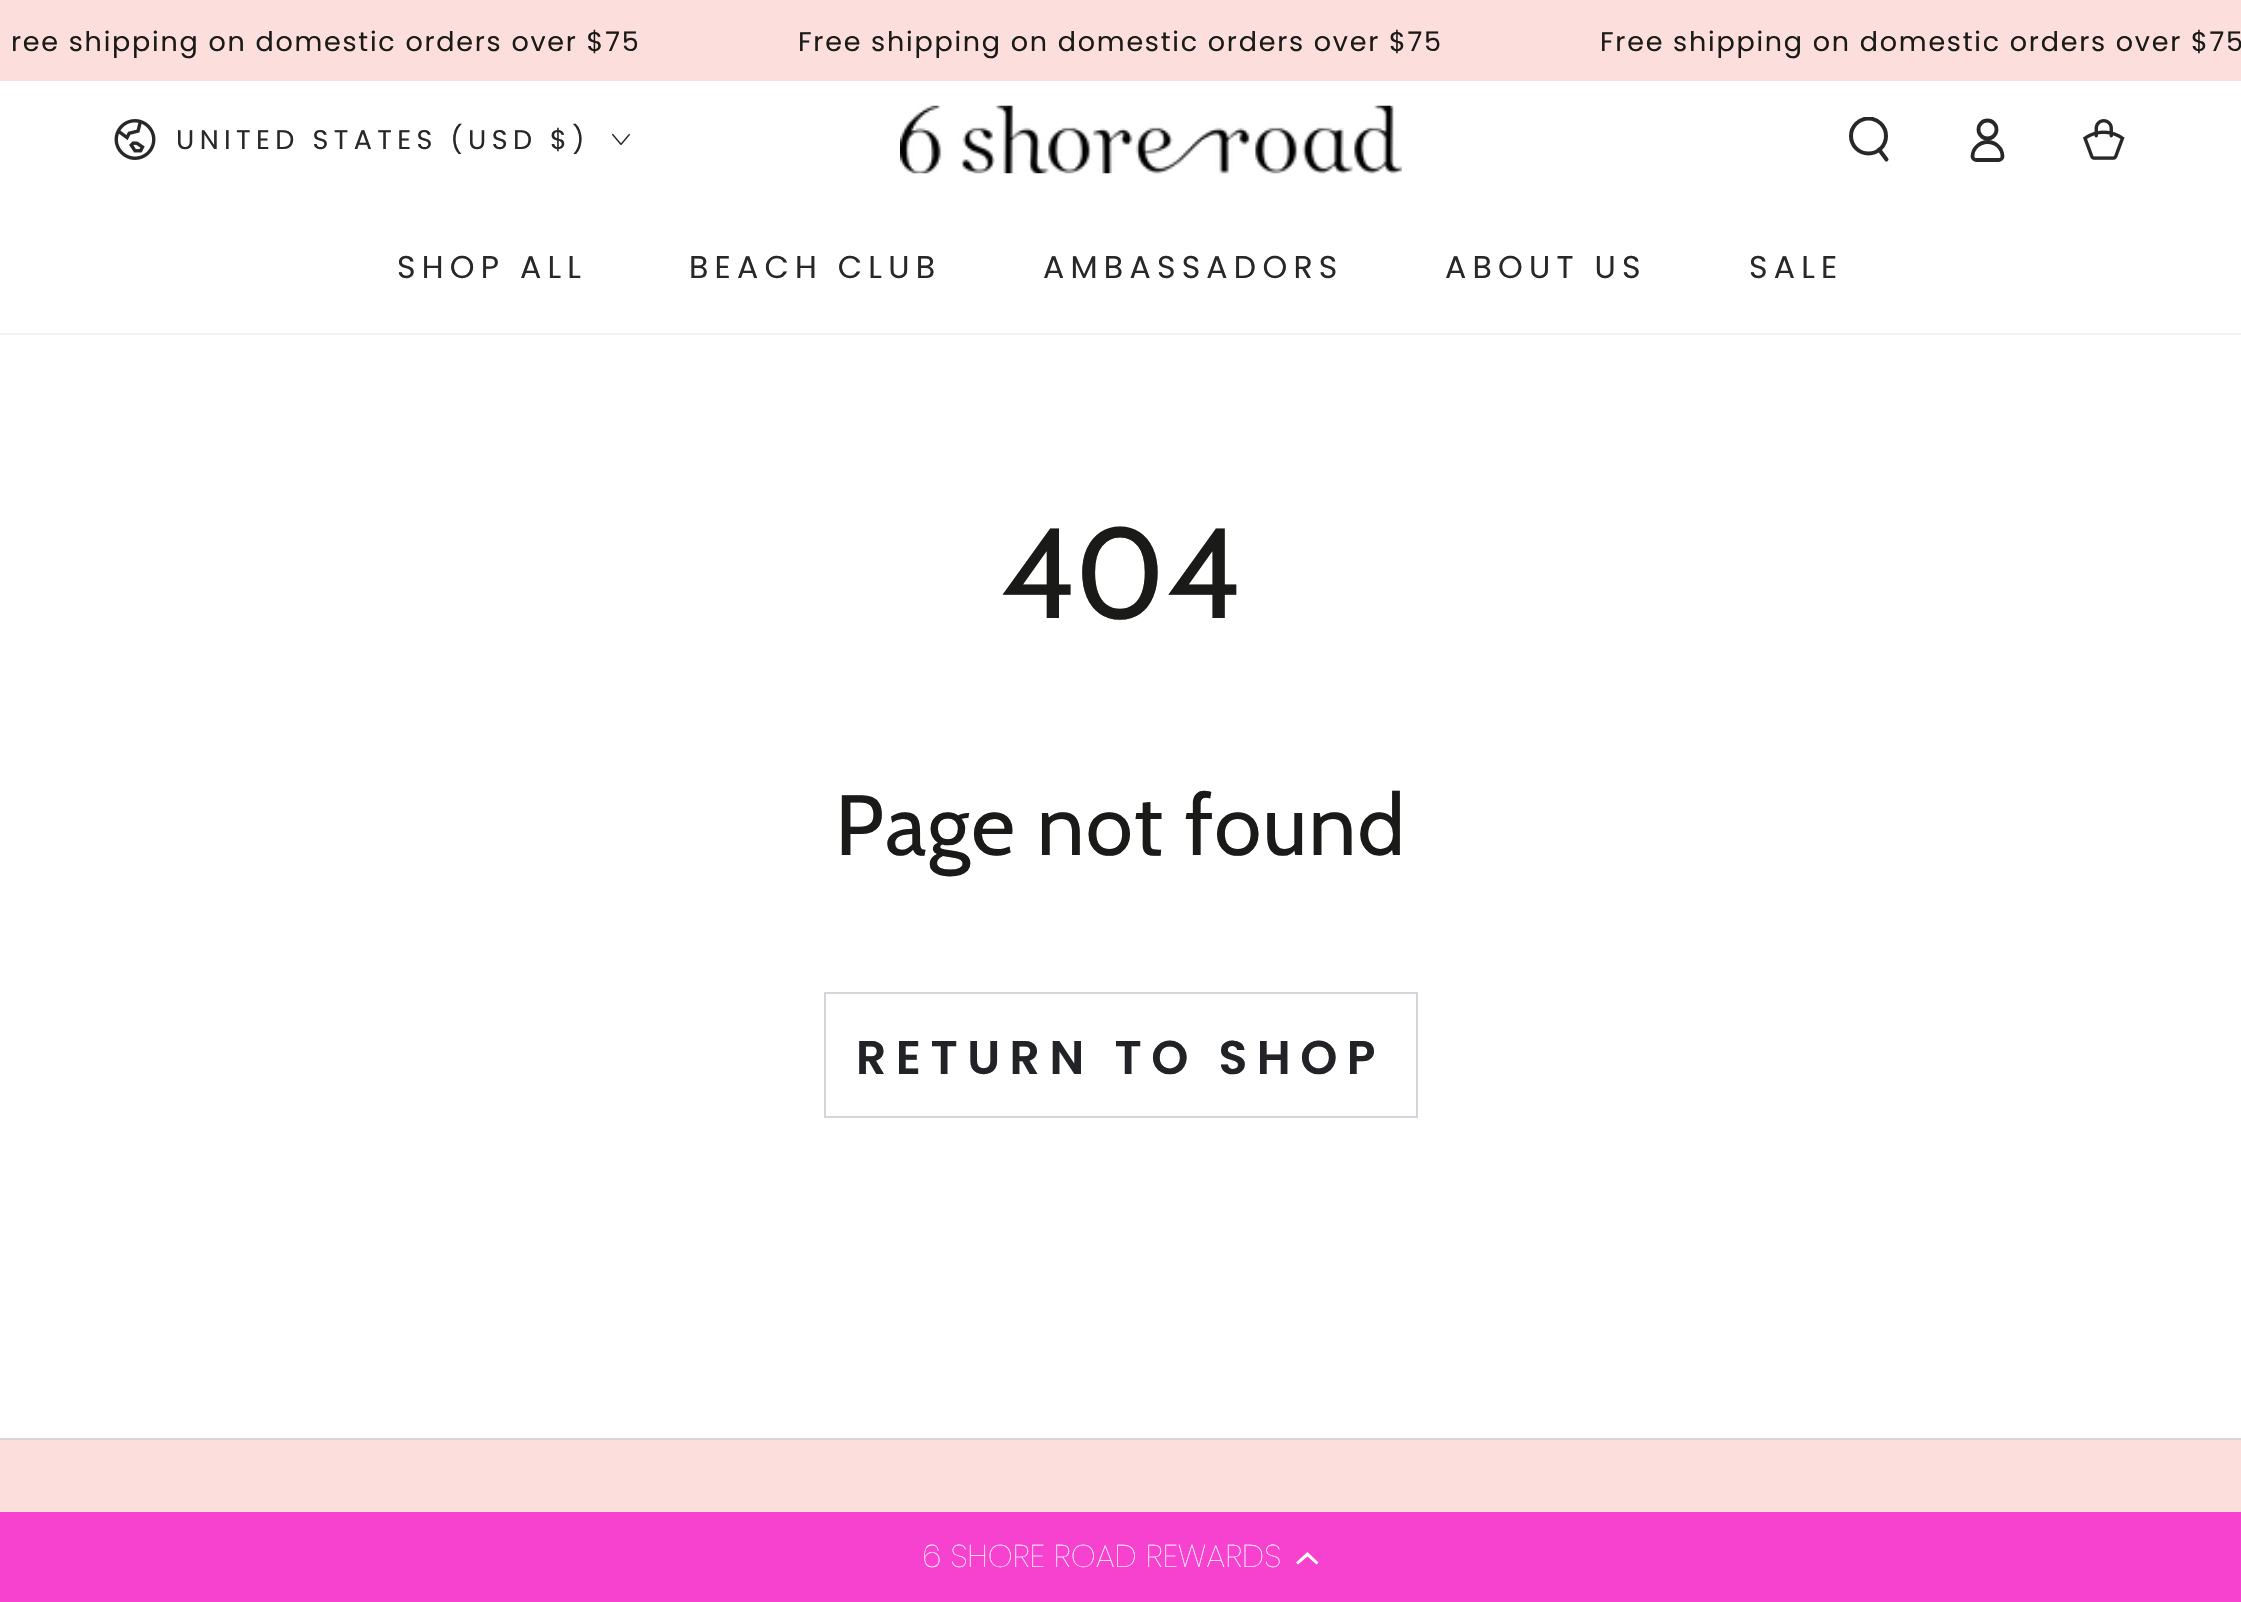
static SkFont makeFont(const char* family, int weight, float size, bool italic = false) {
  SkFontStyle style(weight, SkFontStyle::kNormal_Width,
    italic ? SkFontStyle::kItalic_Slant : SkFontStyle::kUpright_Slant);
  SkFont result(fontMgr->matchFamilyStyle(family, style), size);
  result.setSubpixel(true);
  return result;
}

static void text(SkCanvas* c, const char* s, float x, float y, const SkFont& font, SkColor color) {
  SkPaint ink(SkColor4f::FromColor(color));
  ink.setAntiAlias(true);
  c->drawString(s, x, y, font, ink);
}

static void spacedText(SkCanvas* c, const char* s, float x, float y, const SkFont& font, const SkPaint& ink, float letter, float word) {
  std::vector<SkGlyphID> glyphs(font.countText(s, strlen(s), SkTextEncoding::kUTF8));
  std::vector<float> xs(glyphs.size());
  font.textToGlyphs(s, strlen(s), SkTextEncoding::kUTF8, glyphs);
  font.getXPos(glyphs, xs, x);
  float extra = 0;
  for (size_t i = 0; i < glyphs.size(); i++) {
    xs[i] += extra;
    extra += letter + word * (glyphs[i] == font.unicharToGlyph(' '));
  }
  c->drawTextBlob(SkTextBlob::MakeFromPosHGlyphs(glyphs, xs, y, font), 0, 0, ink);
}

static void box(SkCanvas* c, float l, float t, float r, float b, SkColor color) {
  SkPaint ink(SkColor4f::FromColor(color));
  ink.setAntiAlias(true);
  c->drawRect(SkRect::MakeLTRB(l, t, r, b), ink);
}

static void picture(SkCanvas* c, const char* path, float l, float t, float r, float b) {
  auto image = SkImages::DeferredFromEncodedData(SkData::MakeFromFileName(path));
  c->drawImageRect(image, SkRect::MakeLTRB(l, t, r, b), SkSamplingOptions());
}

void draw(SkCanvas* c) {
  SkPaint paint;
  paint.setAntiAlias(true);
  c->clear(0xffffffff);
  box(c, 0, 0, 2241, 81, 0xfffcdfdd);
  SkFont face1 = makeFont("Poppins", 400, 27);
  paint.setColor(0xff1a1b18);
  spacedText(c, "ree shipping on domestic orders over $75", 11, 51, face1, paint, 1.75f, 0);
  spacedText(c, "Free shipping on domestic orders over $75", 798, 51, face1, paint, 1.75f, 0);
  spacedText(c, "Free shipping on domestic orders over $75", 1600, 51, face1, paint, 1.75f, 0);
  box(c, 0, 333, 2241, 335, 0xfff2f2f4);
  picture(c, "img_01.png", 114, 119, 156, 160);
  paint.setColor(0xff282828);
  spacedText(c, "UNITED STATES (USD $)", 176, 149, face1, paint, 5.4f, 0);
  picture(c, "img_02.png", 612, 133, 630, 146);
  picture(c, "img_03.png", 900, 105, 1402, 174);
  c->save();
  c->clipRect(SkRect::MakeLTRB(1847, 117, 1892, 162));
  paint.setStyle(SkPaint::kStroke_Style);
  paint.setStrokeWidth(4);
  c->drawCircle(1868.5f, 136, 17.5f, paint);
  c->restore();
  paint.setStrokeCap(SkPaint::kRound_Cap);
  c->drawPath(SkPathBuilder().moveTo(1879, 149.5f).lineTo(1886.5f, 159.5f).detach(), paint);
  paint.setStrokeWidth(3.8f);
  paint.setStrokeCap(SkPaint::kButt_Cap);
  c->drawPath(SkPathBuilder().moveTo(1987.5f, 142).cubicTo(1979.5f, 142, 1972.5f, 148.5f, 1972.5f, 156.5f).cubicTo(1972.5f, 158, 1974, 160, 1976, 160).lineTo(1999, 160).cubicTo(2001, 160, 2002.5f, 158, 2002.5f, 156.5f).cubicTo(2002.5f, 148.5f, 1996, 142, 1987.5f, 142).close().detach(), paint);
  c->drawCircle(1987.5f, 129.5f, 9, paint);
  picture(c, "img_04.png", 2083, 119, 2125, 160);
  SkFont face2 = makeFont("Poppins", 400, 31.5f);
  paint.setStyle(SkPaint::kFill_Style);
  spacedText(c, "SHOP ALL", 397, 278, face2, paint, 6.25f, 0);
  spacedText(c, "BEACH CLUB", 689, 278, face2, paint, 6.25f, 0);
  spacedText(c, "AMBASSADORS", 1043, 278, face2, paint, 6.25f, 0);
  spacedText(c, "ABOUT US", 1445, 278, face2, paint, 6.25f, 0);
  spacedText(c, "SALE", 1749, 278, face2, paint, 6.25f, 0);
  SkFont face3 = makeFont("Cabin", 400, 128);
  paint.setColor(0xff1a1b18);
  spacedText(c, "404", 1000, 618, face3, paint, 1.25f, 0);
  SkFont face4 = makeFont("Cabin", 400, 85.5f);
  spacedText(c, "Page not found", 835, 855, face4, paint, 1.25f, 0);
  paint.setStyle(SkPaint::kStroke_Style);
  paint.setStrokeWidth(2);
  paint.setColor(0xffd2d5d9);
  c->drawRect(SkRect::MakeLTRB(825, 993, 1417, 1117), paint);
  SkFont face5 = makeFont("Poppins", 600, 47.25f);
  paint.setStyle(SkPaint::kFill_Style);
  paint.setColor(0xff212326);
  spacedText(c, "RETURN TO SHOP", 856, 1074, face5, paint, 9.5f, 0);
  box(c, 0, 1440, 2241, 1512, 0xfffcdfdd);
  box(c, 0, 1438, 2241, 1440, 0xffd2d5d9);
  box(c, 0, 1512, 2241, 1602, 0xfff742cf);
  SkFont face6 = makeFont("Poppins", 100, 31.5f);
  text(c, "6 SHORE ROAD REWARDS", 922, 1567, face6, 0xffffffff);
  paint.setColor(0xffffffff);
  c->drawPath(SkPathBuilder().moveTo(1307.5f, 1556.5f).lineTo(1298, 1564.5f).lineTo(1296, 1562.5f).lineTo(1307.5f, 1552).lineTo(1318.5f, 1562.5f).lineTo(1316.5f, 1564.5f).close().detach(), paint);
}
